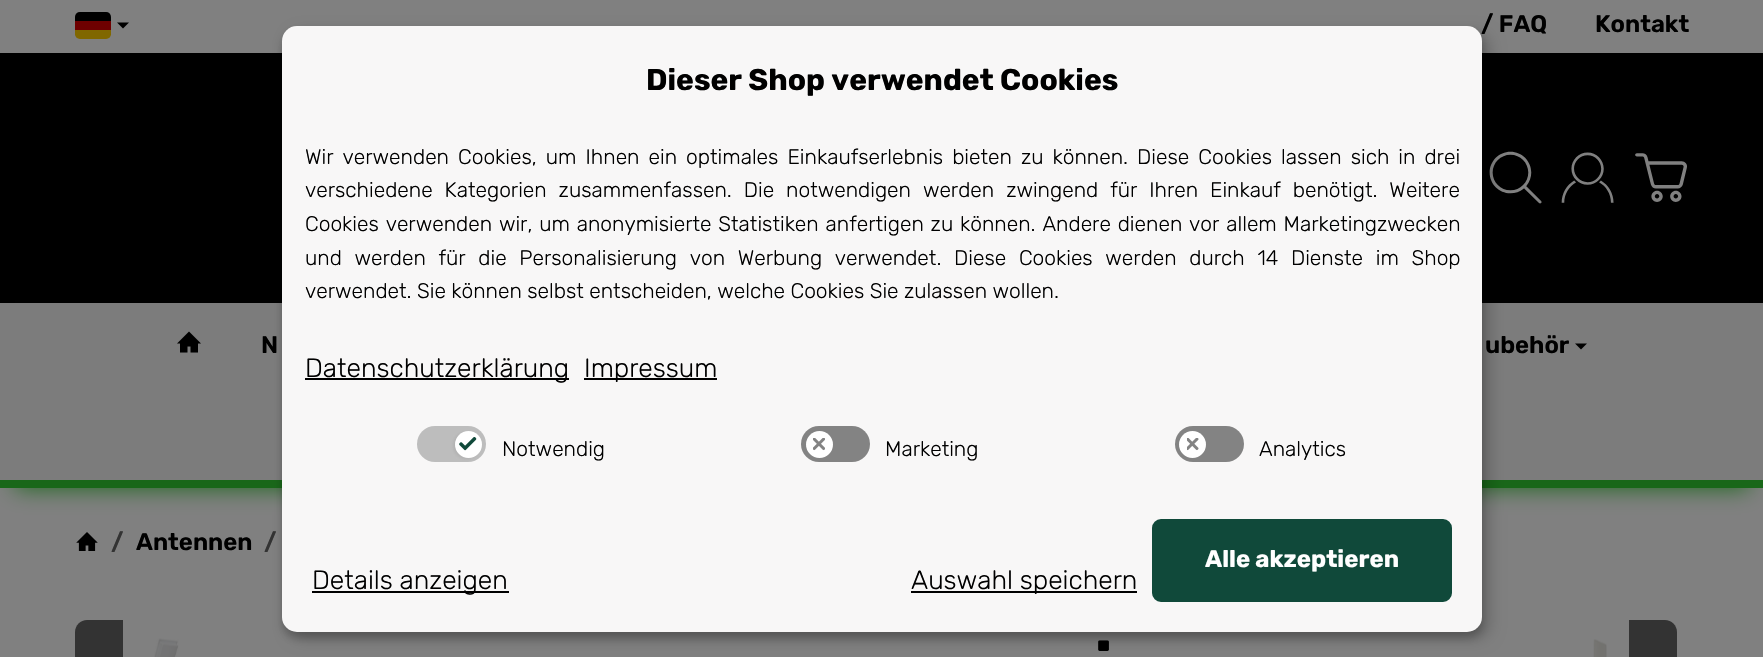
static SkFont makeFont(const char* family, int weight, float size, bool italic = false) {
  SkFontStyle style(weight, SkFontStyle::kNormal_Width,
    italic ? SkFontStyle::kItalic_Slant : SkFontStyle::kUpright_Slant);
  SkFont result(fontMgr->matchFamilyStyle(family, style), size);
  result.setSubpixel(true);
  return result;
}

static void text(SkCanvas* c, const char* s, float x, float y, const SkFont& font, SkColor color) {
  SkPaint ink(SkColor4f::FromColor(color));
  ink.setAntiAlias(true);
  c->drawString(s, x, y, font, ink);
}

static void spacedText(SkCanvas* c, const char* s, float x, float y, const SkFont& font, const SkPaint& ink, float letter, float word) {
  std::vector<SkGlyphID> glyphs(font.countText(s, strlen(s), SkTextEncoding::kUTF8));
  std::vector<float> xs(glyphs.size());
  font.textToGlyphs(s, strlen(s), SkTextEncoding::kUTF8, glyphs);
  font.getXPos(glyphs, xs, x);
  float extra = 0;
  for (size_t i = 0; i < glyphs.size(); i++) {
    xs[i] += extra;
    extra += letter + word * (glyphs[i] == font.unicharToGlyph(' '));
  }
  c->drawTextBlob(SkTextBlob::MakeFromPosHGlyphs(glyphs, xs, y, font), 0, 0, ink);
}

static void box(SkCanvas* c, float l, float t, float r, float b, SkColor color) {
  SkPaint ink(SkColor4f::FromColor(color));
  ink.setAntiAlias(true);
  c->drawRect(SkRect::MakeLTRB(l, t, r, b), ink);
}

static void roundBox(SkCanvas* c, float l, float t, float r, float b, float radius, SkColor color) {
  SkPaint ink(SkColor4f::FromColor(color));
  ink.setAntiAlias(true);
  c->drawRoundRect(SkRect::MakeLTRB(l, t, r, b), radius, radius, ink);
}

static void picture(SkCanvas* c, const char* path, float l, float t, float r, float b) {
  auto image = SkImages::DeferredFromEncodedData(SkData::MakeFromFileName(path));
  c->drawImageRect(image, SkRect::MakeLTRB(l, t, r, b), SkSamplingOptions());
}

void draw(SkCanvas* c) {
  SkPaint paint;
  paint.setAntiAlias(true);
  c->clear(0xff808080);
  picture(c, "img_01.png", 75, 12, 111, 39);
  paint.setColor(0xff000000);
  c->drawPath(SkPathBuilder().moveTo(117, 22.5f).lineTo(129, 22.5f).lineTo(123, 28.5f).close().detach(), paint);
  SkFont face1 = makeFont("Rubik", 600, 24);
  text(c, "/ FAQ", 1481, 32, face1, 0xff000000);
  text(c, "Kontakt", 1595, 32, face1, 0xff000000);
  box(c, 0, 53, 1763, 303, 0xff000000);
  picture(c, "img_02.png", 1489, 151, 1542, 204);
  picture(c, "img_03.png", 1561, 152, 1614, 203);
  picture(c, "img_04.png", 1635, 153, 1687, 202);
  paint.setColor(0xff196719);
  paint.setMaskFilter(SkMaskFilter::MakeBlur(kNormal_SkBlurStyle, 11));
  c->drawRect(SkRect::MakeLTRB(15, 333, 1749, 488), paint);
  paint.setMaskFilter(nullptr);
  box(c, 0, 303, 1763, 480, 0xff7c7c7c);
  box(c, 0, 480, 1763, 488, 0xff196719);
  paint.setColor(0x30000000);
  paint.setMaskFilter(SkMaskFilter::MakeBlur(kNormal_SkBlurStyle, 7.5f));
  c->drawRoundRect(SkRect::MakeLTRB(290, 33, 1490, 639), 15, 15, paint);
  paint.setMaskFilter(nullptr);
  paint.setColor(0x33000000);
  paint.setMaskFilter(SkMaskFilter::MakeBlur(kNormal_SkBlurStyle, 4.5f));
  c->drawRoundRect(SkRect::MakeLTRB(282, 32, 1482, 638), 15, 15, paint);
  paint.setMaskFilter(nullptr);
  roundBox(c, 282, 26, 1482, 632, 15, 0xfff8f7f7);
  SkFont face2 = makeFont("Rubik", 700, 30);
  text(c, "Dieser Shop verwendet Cookies", 646, 90, face2, 0xff000000);
  SkFont face3 = makeFont("Rubik", 300, 21);
  paint.setColor(0xff000000);
  spacedText(c, "Wir verwenden Cookies, um Ihnen ein optimales Einkaufserlebnis bieten zu können. Diese Cookies lassen sich in drei", 305, 164, face3, paint, 0, 3.6f);
  spacedText(c, "verschiedene Kategorien zusammenfassen. Die notwendigen werden zwingend für Ihren Einkauf benötigt. Weitere", 305, 197, face3, paint, 0, 6.5f);
  spacedText(c, "Cookies verwenden wir, um anonymisierte Statistiken anfertigen zu können. Andere dienen vor allem Marketingzwecken", 305, 231, face3, paint, 0, 1.4f);
  spacedText(c, "und werden für die Personalisierung von Werbung verwendet. Diese Cookies werden durch 14 Dienste im Shop", 305, 265, face3, paint, 0, 7.25f);
  text(c, "verwendet. Sie können selbst entscheiden, welche Cookies Sie zulassen wollen.", 305, 298, face3, 0xff000000);
  box(c, 305, 378, 569, 380, 0xff000000);
  SkFont face4 = makeFont("Rubik", 300, 26.4f);
  text(c, "Datenschutzerklärung", 305, 377, face4, 0xff000000);
  box(c, 584, 378, 717, 380, 0xff000000);
  text(c, "Impressum", 584, 377, face4, 0xff000000);
  roundBox(c, 417, 426, 486, 462, 18, 0xffbdbdbd);
  paint.setColor(0x73a3a3a3);
  paint.setMaskFilter(SkMaskFilter::MakeBlur(kNormal_SkBlurStyle, 1.5f));
  c->drawRoundRect(SkRect::MakeLTRB(453, 432, 480, 459), 13.5f, 13.5f, paint);
  paint.setMaskFilter(nullptr);
  paint.setColor(0xffffffff);
  c->drawCircle(468.5f, 444.5f, 13.5f, paint);
  picture(c, "img_05.png", 459, 437, 477, 451);
  text(c, "Notwendig", 502, 456, face3, 0xff000000);
  roundBox(c, 801, 426, 870, 462, 18, 0xff838383);
  c->drawCircle(819.5f, 444.5f, 13.5f, paint);
  picture(c, "img_06.png", 813, 438, 825, 451);
  text(c, "Marketing", 885, 456, face3, 0xff000000);
  roundBox(c, 1175, 426, 1244, 462, 18, 0xff838383);
  c->drawCircle(1192.5f, 444.5f, 13.5f, paint);
  picture(c, "img_07.png", 1187, 438, 1199, 451);
  text(c, "Analytics", 1259, 456, face3, 0xff000000);
  paint.setColor(0xff10493a);
  c->drawRoundRect(SkRect::MakeLTRB(1153.5f, 520.5f, 1450.5f, 600.5f), 7.5f, 7.5f, paint);
  paint.setStyle(SkPaint::kStroke_Style);
  paint.setStrokeWidth(3);
  c->drawRoundRect(SkRect::MakeLTRB(1153.5f, 520.5f, 1450.5f, 600.5f), 7.5f, 7.5f, paint);
  SkFont face5 = makeFont("Rubik", 700, 24);
  text(c, "Alle akzeptieren", 1205, 567, face5, 0xffffffff);
  box(c, 312, 591, 509, 593, 0xff000000);
  text(c, "Details anzeigen", 312, 589, face4, 0xff000000);
  box(c, 911, 591, 1137, 593, 0xff000000);
  text(c, "Auswahl speichern", 911, 589, face4, 0xff000000);
  picture(c, "img_08.png", 177, 331, 201, 353);
  text(c, "N", 261, 353, face1, 0xff000000);
  text(c, "ubehör", 1485, 353, face1, 0xff000000);
  paint.setStyle(SkPaint::kFill_Style);
  paint.setColor(0xff000000);
  c->drawPath(SkPathBuilder().moveTo(1575, 343.5f).lineTo(1587, 343.5f).lineTo(1581, 349.5f).close().detach(), paint);
  picture(c, "img_09.png", 76, 532, 98, 551);
  text(c, "/", 111, 550, face1, 0xff333333);
  text(c, "Antennen", 136, 550, face1, 0xff000000);
  text(c, "/", 264, 550, face1, 0xff333333);
  paint.setColor(0xff333333);
  c->drawPath(SkPathBuilder().moveTo(87, 620).lineTo(123, 620).lineTo(123, 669).lineTo(87, 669).cubicTo(80.5f, 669, 75, 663.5f, 75, 657).lineTo(75, 632).cubicTo(75, 625.5f, 80.5f, 620, 87, 620).close().detach(), paint);
  picture(c, "img_10.png", 154, 638, 179, 657);
  SkFont face6 = makeFont("Rubik", 700, 60);
  text(c, ".", 1095, 651, face6, 0xff000000);
  picture(c, "img_11.png", 1593, 639, 1607, 657);
  c->drawPath(SkPathBuilder().moveTo(1629, 620).lineTo(1665, 620).cubicTo(1671.5f, 620, 1677, 625.5f, 1677, 632).lineTo(1677, 657).cubicTo(1677, 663.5f, 1671.5f, 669, 1665, 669).lineTo(1629, 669).close().detach(), paint);
}
